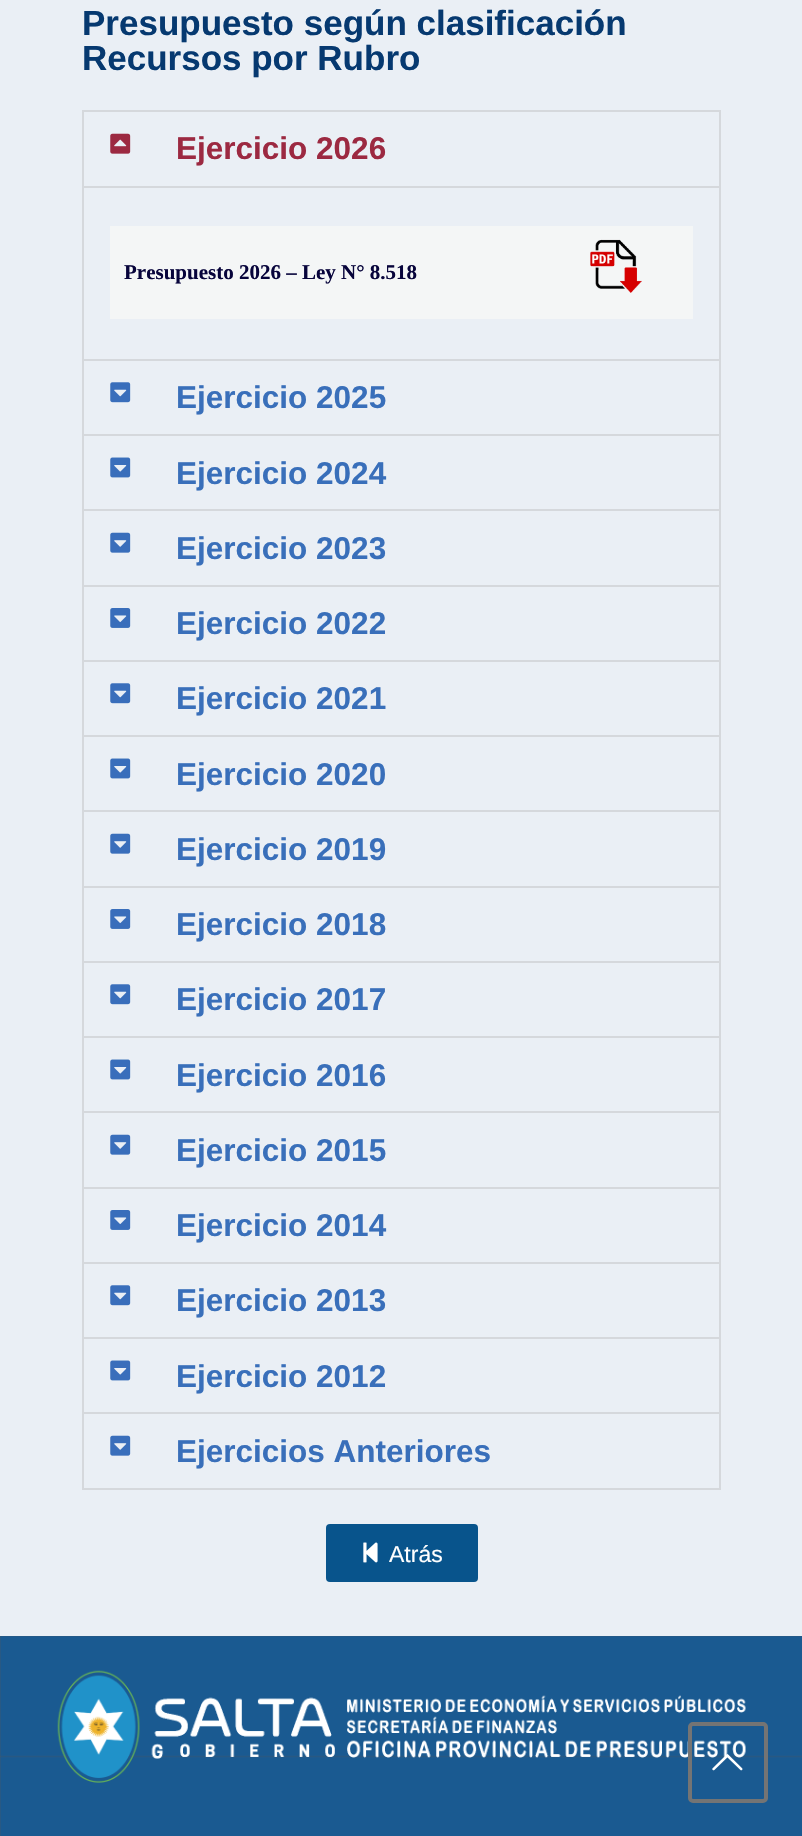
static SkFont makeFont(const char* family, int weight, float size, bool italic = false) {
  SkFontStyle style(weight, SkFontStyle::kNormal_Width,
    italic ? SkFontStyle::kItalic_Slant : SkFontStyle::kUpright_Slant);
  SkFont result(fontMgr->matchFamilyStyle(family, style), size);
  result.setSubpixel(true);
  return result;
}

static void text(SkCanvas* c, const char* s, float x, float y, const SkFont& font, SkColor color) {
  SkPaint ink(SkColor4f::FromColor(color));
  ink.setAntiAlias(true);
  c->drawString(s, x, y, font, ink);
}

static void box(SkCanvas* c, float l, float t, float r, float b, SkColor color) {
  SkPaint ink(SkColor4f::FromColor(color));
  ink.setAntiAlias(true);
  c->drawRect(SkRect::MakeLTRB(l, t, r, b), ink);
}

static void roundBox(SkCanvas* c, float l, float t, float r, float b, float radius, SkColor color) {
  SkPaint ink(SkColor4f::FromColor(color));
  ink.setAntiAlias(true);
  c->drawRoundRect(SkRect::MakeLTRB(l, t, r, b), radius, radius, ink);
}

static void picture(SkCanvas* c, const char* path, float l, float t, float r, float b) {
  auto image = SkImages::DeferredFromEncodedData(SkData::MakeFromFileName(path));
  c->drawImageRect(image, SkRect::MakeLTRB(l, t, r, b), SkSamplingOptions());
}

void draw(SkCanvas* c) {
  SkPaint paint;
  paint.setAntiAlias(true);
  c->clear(0xff545454);
  box(c, 0, 0, 802, 1636, 0xffeaeff5);
  SkFont face1 = makeFont("Liberation Sans", 700, 35);
  text(c, "Presupuesto según clasificación", 82, 35, face1, 0xff063970);
  text(c, "Recursos por Rubro", 82, 70, face1, 0xff063970);
  paint.setStyle(SkPaint::kStroke_Style);
  paint.setStrokeWidth(2);
  paint.setColor(0xffd5d8dc);
  c->drawRect(SkRect::MakeLTRB(83, 111, 720, 360), paint);
  picture(c, "img_01.png", 110, 133, 131, 154);
  SkFont face2 = makeFont("Liberation Sans", 700, 31.5f);
  text(c, "Ejercicio 2026", 176, 159, face2, 0xff9c2941);
  box(c, 84, 186, 719, 188, 0xffd5d8dc);
  box(c, 110, 226, 693, 319, 0xfff4f6f6);
  SkFont face3 = makeFont("Liberation Serif", 700, 21);
  text(c, "Presupuesto 2026 – Ley N° 8.518", 124, 279, face3, 0xff07043b);
  picture(c, "img_02.png", 590, 239, 642, 293);
  box(c, 719, 361, 721, 586, 0xffd5d8dc);
  box(c, 82, 434, 721, 436, 0xffd5d8dc);
  box(c, 82, 361, 84, 436, 0xffd5d8dc);
  picture(c, "img_03.png", 110, 382, 131, 403);
  text(c, "Ejercicio 2025", 176, 408, face2, 0xff396fba);
  box(c, 82, 509, 721, 511, 0xffd5d8dc);
  box(c, 82, 436, 84, 511, 0xffd5d8dc);
  picture(c, "img_04.png", 110, 457, 131, 478);
  text(c, "Ejercicio 2024", 176, 484, face2, 0xff396fba);
  box(c, 82, 585, 721, 587, 0xffd5d8dc);
  box(c, 82, 511, 84, 586, 0xffd5d8dc);
  picture(c, "img_05.png", 110, 532, 131, 553);
  text(c, "Ejercicio 2023", 176, 559, face2, 0xff396fba);
  box(c, 719, 586, 721, 887, 0xffd5d8dc);
  box(c, 82, 660, 721, 662, 0xffd5d8dc);
  box(c, 82, 586, 84, 662, 0xffd5d8dc);
  picture(c, "img_06.png", 110, 608, 131, 628);
  text(c, "Ejercicio 2022", 176, 634, face2, 0xff396fba);
  box(c, 82, 735, 721, 737, 0xffd5d8dc);
  box(c, 82, 662, 84, 737, 0xffd5d8dc);
  picture(c, "img_03.png", 110, 683, 131, 704);
  text(c, "Ejercicio 2021", 176, 709, face2, 0xff396fba);
  box(c, 82, 810, 721, 812, 0xffd5d8dc);
  box(c, 82, 737, 84, 812, 0xffd5d8dc);
  picture(c, "img_04.png", 110, 758, 131, 779);
  text(c, "Ejercicio 2020", 176, 785, face2, 0xff396fba);
  box(c, 82, 886, 721, 888, 0xffd5d8dc);
  box(c, 82, 812, 84, 887, 0xffd5d8dc);
  picture(c, "img_05.png", 110, 833, 131, 854);
  text(c, "Ejercicio 2019", 176, 860, face2, 0xff396fba);
  box(c, 719, 887, 721, 1188, 0xffd5d8dc);
  box(c, 82, 961, 721, 963, 0xffd5d8dc);
  box(c, 82, 887, 84, 963, 0xffd5d8dc);
  picture(c, "img_06.png", 110, 909, 131, 929);
  text(c, "Ejercicio 2018", 176, 935, face2, 0xff396fba);
  box(c, 82, 1036, 721, 1038, 0xffd5d8dc);
  box(c, 82, 963, 84, 1038, 0xffd5d8dc);
  picture(c, "img_03.png", 110, 984, 131, 1005);
  text(c, "Ejercicio 2017", 176, 1010, face2, 0xff396fba);
  box(c, 82, 1111, 721, 1113, 0xffd5d8dc);
  box(c, 82, 1038, 84, 1113, 0xffd5d8dc);
  picture(c, "img_04.png", 110, 1059, 131, 1080);
  text(c, "Ejercicio 2016", 176, 1086, face2, 0xff396fba);
  box(c, 82, 1187, 721, 1189, 0xffd5d8dc);
  box(c, 82, 1113, 84, 1188, 0xffd5d8dc);
  picture(c, "img_05.png", 110, 1134, 131, 1155);
  text(c, "Ejercicio 2015", 176, 1161, face2, 0xff396fba);
  box(c, 719, 1188, 721, 1489, 0xffd5d8dc);
  box(c, 82, 1262, 721, 1264, 0xffd5d8dc);
  box(c, 82, 1188, 84, 1264, 0xffd5d8dc);
  picture(c, "img_06.png", 110, 1210, 131, 1230);
  text(c, "Ejercicio 2014", 176, 1236, face2, 0xff396fba);
  box(c, 82, 1337, 721, 1339, 0xffd5d8dc);
  box(c, 82, 1264, 84, 1339, 0xffd5d8dc);
  picture(c, "img_03.png", 110, 1285, 131, 1306);
  text(c, "Ejercicio 2013", 176, 1311, face2, 0xff396fba);
  box(c, 82, 1412, 721, 1414, 0xffd5d8dc);
  box(c, 82, 1339, 84, 1414, 0xffd5d8dc);
  picture(c, "img_04.png", 110, 1360, 131, 1381);
  text(c, "Ejercicio 2012", 176, 1387, face2, 0xff396fba);
  box(c, 82, 1488, 721, 1490, 0xffd5d8dc);
  box(c, 82, 1414, 84, 1489, 0xffd5d8dc);
  picture(c, "img_05.png", 110, 1435, 131, 1456);
  text(c, "Ejercicios Anteriores", 176, 1462, face2, 0xff396fba);
  roundBox(c, 326, 1524, 478, 1582, 4, 0xff08548c);
  picture(c, "img_07.png", 363, 1542, 378, 1563);
  SkFont face4 = makeFont("Liberation Sans", 400, 23);
  text(c, "Atrás", 389, 1562, face4, 0xffffffff);
  picture(c, "img_08.png", 0, 1636, 802, 1836);
  picture(c, "img_09.png", 57, 1670, 746, 1783);
  paint.setStrokeWidth(4);
  paint.setColor(0xff747474);
  c->drawRoundRect(SkRect::MakeLTRB(690, 1724, 766, 1801), 3, 3, paint);
  picture(c, "img_10.png", 712, 1754, 743, 1771);
}
